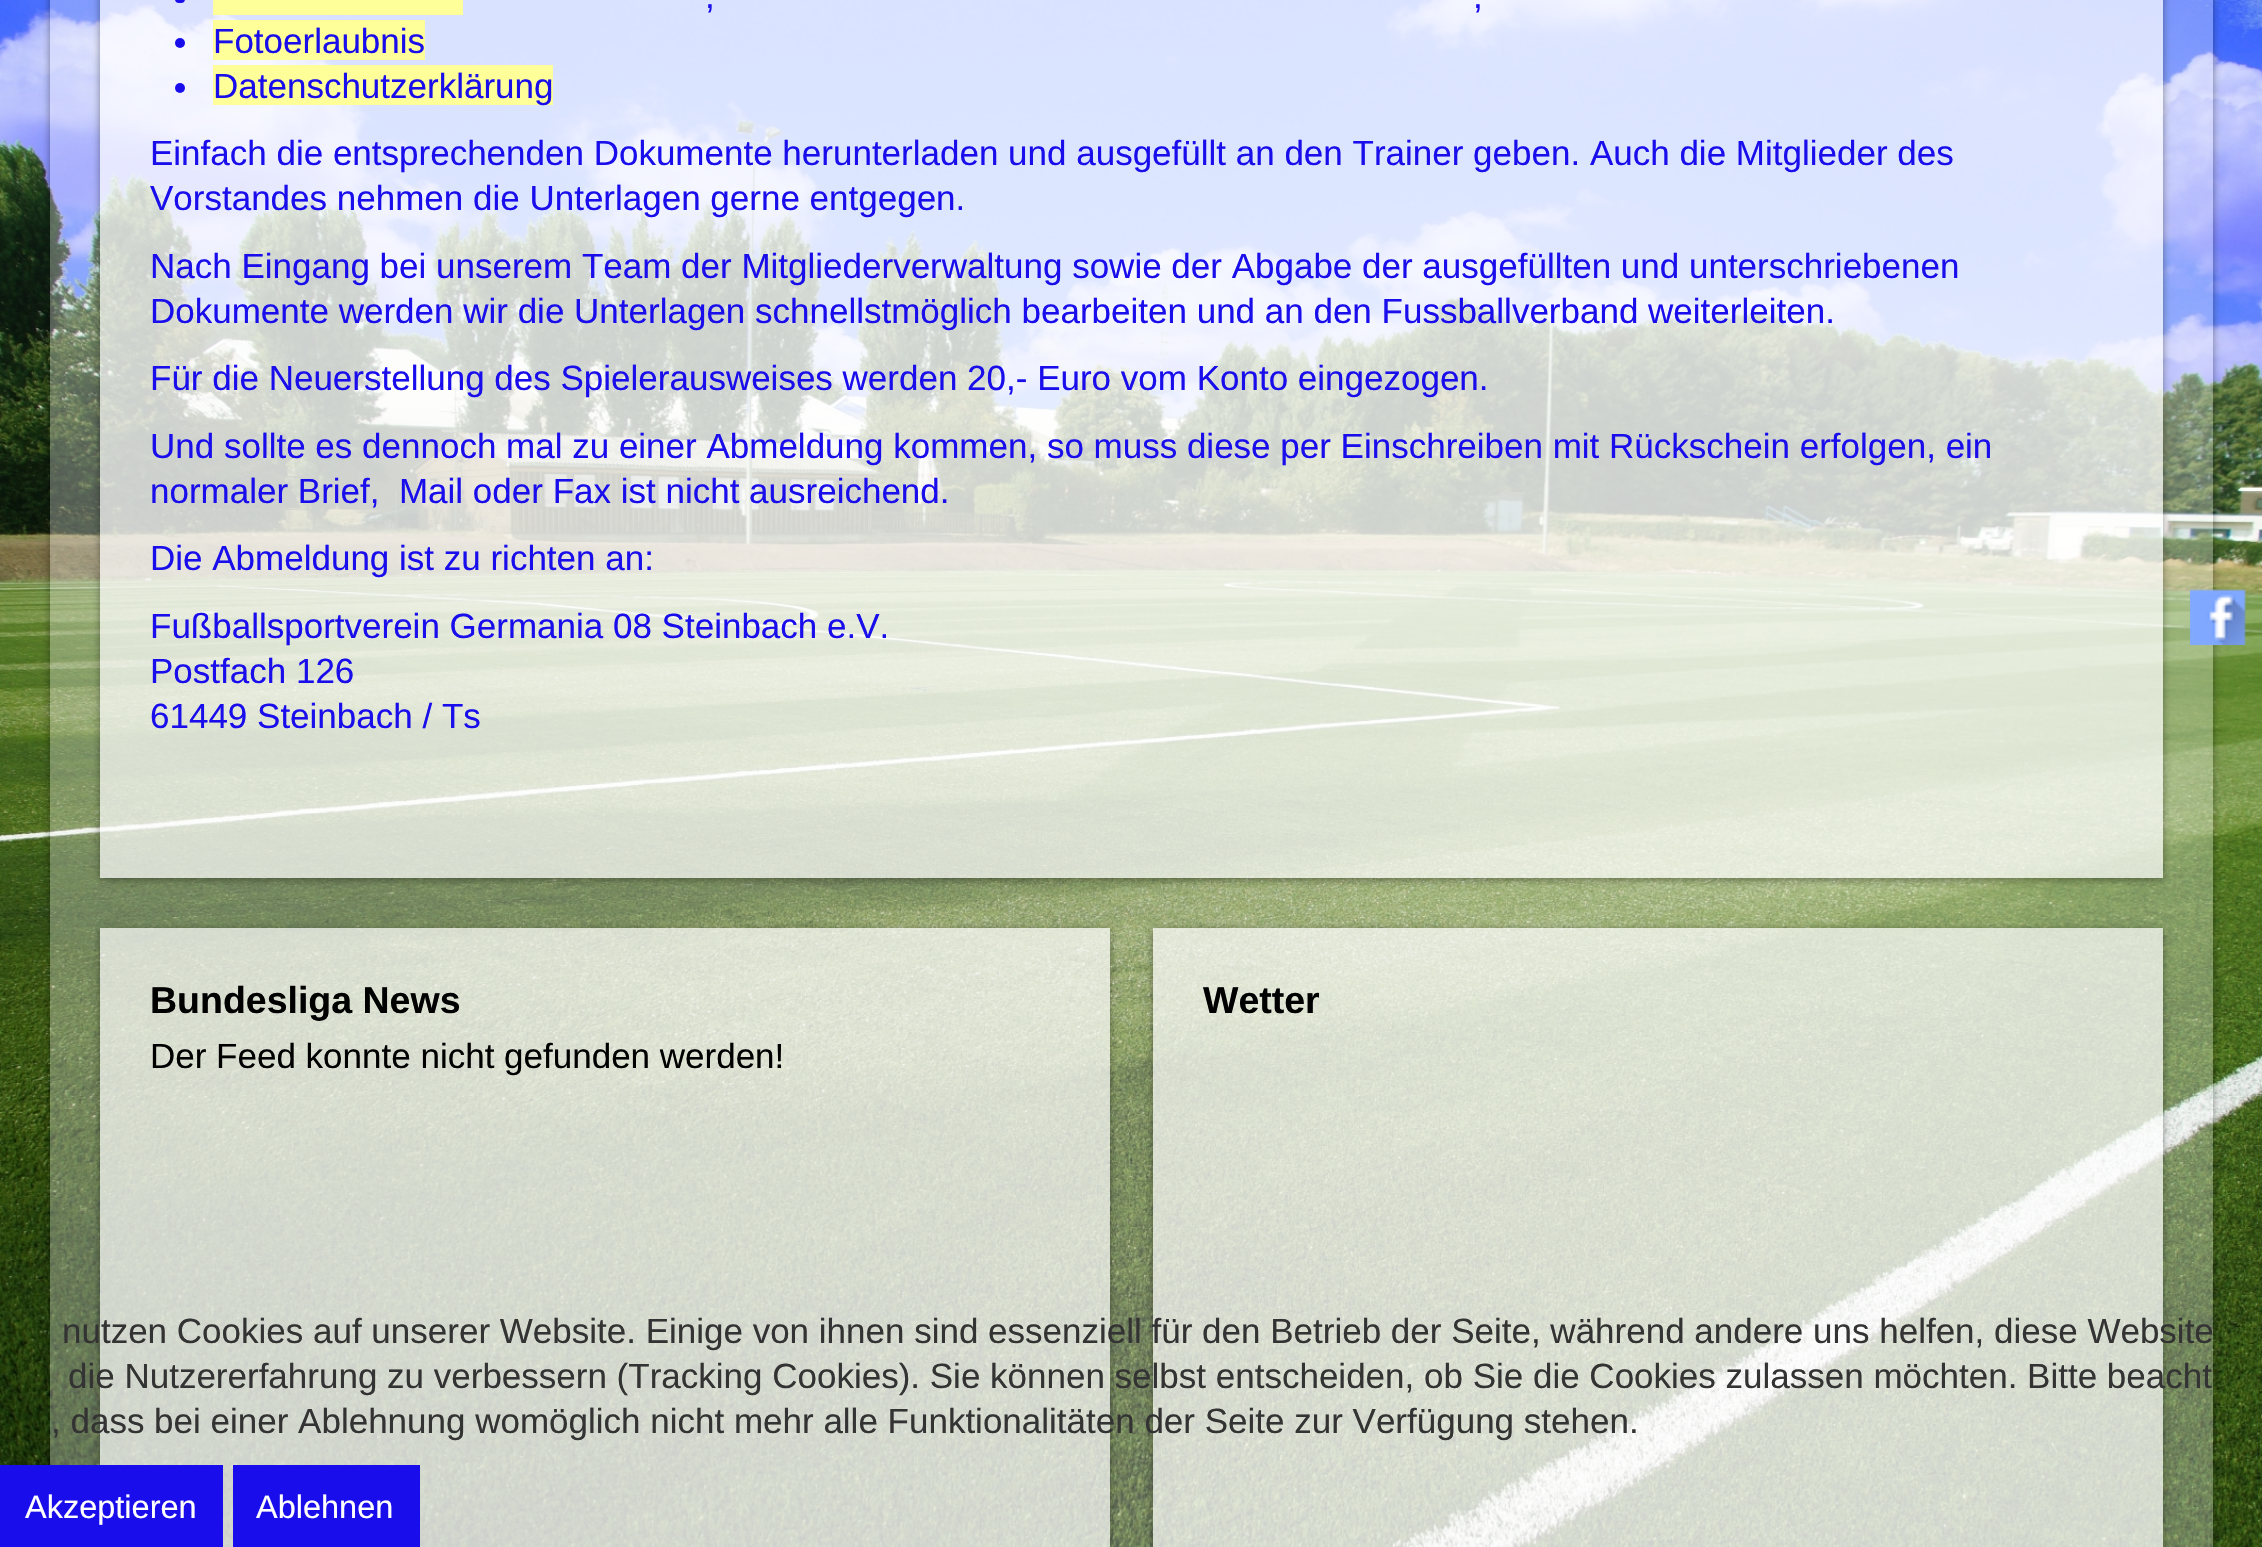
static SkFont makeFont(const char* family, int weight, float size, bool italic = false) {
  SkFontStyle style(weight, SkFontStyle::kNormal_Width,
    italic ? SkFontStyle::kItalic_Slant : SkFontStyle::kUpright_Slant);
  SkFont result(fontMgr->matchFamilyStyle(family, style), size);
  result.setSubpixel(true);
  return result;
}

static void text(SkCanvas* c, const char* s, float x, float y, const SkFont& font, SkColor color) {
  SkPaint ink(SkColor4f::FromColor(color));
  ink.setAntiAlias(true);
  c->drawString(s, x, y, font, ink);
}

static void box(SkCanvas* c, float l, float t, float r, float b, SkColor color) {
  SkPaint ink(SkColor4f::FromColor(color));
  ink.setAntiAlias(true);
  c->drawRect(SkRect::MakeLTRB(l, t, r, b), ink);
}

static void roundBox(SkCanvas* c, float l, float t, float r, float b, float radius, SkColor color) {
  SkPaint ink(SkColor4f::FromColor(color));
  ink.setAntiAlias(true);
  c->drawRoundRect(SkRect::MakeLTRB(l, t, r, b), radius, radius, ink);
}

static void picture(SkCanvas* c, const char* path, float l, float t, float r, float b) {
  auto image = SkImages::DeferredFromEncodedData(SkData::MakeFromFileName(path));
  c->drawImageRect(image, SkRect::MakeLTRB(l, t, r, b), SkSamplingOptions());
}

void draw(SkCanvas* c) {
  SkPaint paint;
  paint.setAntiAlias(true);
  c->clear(0xffffffff);
  picture(c, "img_01.png", 0, 0, 2262, 1547);
  c->save();
  c->clipPath(SkPathBuilder(SkPathFillType::kEvenOdd).moveTo(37, 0).lineTo(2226, 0).lineTo(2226, 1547).lineTo(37, 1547).close().moveTo(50, -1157).lineTo(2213, -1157).lineTo(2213, 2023).lineTo(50, 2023).close().detach(), true);
  paint.setColor(0x66000000);
  paint.setMaskFilter(SkMaskFilter::MakeBlur(kNormal_SkBlurStyle, 4));
  c->drawRect(SkRect::MakeLTRB(50, -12, 2213, 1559), paint);
  paint.setMaskFilter(nullptr);
  c->restore();
  box(c, 50, 0, 2213, 928, 0x4dffffff);
  c->save();
  c->clipPath(SkPathBuilder(SkPathFillType::kEvenOdd).moveTo(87, 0).lineTo(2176, 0).lineTo(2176, 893).lineTo(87, 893).close().moveTo(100, -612).lineTo(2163, -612).lineTo(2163, 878).lineTo(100, 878).close().detach(), true);
  paint.setMaskFilter(SkMaskFilter::MakeBlur(kNormal_SkBlurStyle, 4));
  c->drawRect(SkRect::MakeLTRB(100, -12, 2163, 880), paint);
  paint.setMaskFilter(nullptr);
  c->restore();
  box(c, 100, 0, 2163, 878, 0xb3ffffff);
  roundBox(c, 175, -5, 185, 3, 5, 0xff190eeb);
  box(c, 213, 0, 463, 15, 0xffffff99);
  SkFont face1 = makeFont("Liberation Sans", 400, 35);
  text(c, ",", 705, 8, face1, 0xff190eeb);
  text(c, ",", 1473, 8, face1, 0xff190eeb);
  paint.setColor(0xff190eeb);
  c->drawCircle(180, 43, 5, paint);
  box(c, 213, 20, 425, 60, 0xffffff99);
  text(c, "Fotoerlaubnis", 213, 53, face1, 0xff190eeb);
  c->drawCircle(180, 88, 5, paint);
  box(c, 213, 65, 553, 105, 0xffffff99);
  text(c, "Datenschutzerklärung", 213, 98, face1, 0xff190eeb);
  text(c, "Einfach die entsprechenden Dokumente herunterladen und ausgefüllt an den Trainer geben. Auch die Mitglieder des", 150, 165, face1, 0xff190eeb);
  text(c, "Vorstandes nehmen die Unterlagen gerne entgegen.", 150, 210, face1, 0xff190eeb);
  text(c, "Nach Eingang bei unserem Team der Mitgliederverwaltung sowie der Abgabe der ausgefüllten und unterschriebenen", 150, 278, face1, 0xff190eeb);
  text(c, "Dokumente werden wir die Unterlagen schnellstmöglich bearbeiten und an den Fussballverband weiterleiten.", 150, 323, face1, 0xff190eeb);
  text(c, "Für die Neuerstellung des Spielerausweises werden 20,- Euro vom Konto eingezogen.", 150, 390, face1, 0xff190eeb);
  text(c, "Und sollte es dennoch mal zu einer Abmeldung kommen, so muss diese per Einschreiben mit Rückschein erfolgen, ein", 150, 458, face1, 0xff190eeb);
  text(c, "normaler Brief,  Mail oder Fax ist nicht ausreichend.", 150, 503, face1, 0xff190eeb);
  text(c, "Die Abmeldung ist zu richten an:", 150, 570, face1, 0xff190eeb);
  text(c, "Fußballsportverein Germania 08 Steinbach e.V.", 150, 638, face1, 0xff190eeb);
  text(c, "Postfach 126", 150, 683, face1, 0xff190eeb);
  text(c, "61449 Steinbach / Ts", 150, 728, face1, 0xff190eeb);
  box(c, 50, 928, 2213, 1547, 0x4dffffff);
  c->save();
  c->clipPath(SkPathBuilder(SkPathFillType::kEvenOdd).moveTo(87, 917).lineTo(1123, 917).lineTo(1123, 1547).lineTo(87, 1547).close().moveTo(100, 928).lineTo(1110, 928).lineTo(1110, 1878).lineTo(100, 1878).close().detach(), true);
  paint.setColor(0x66000000);
  paint.setMaskFilter(SkMaskFilter::MakeBlur(kNormal_SkBlurStyle, 4));
  c->drawRect(SkRect::MakeLTRB(100, 930, 1110, 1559), paint);
  paint.setMaskFilter(nullptr);
  c->restore();
  box(c, 100, 928, 1110, 1547, 0xb3ffffff);
  SkFont face2 = makeFont("Liberation Sans", 700, 37.5f);
  text(c, "Bundesliga News", 150, 1013, face2, 0xff000000);
  text(c, "Der Feed konnte nicht gefunden werden!", 150, 1068, face1, 0xff000000);
  c->save();
  c->clipPath(SkPathBuilder(SkPathFillType::kEvenOdd).moveTo(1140, 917).lineTo(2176, 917).lineTo(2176, 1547).lineTo(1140, 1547).close().moveTo(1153, 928).lineTo(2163, 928).lineTo(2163, 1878).lineTo(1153, 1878).close().detach(), true);
  paint.setMaskFilter(SkMaskFilter::MakeBlur(kNormal_SkBlurStyle, 4));
  c->drawRect(SkRect::MakeLTRB(1153, 930, 2163, 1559), paint);
  paint.setMaskFilter(nullptr);
  c->restore();
  box(c, 1153, 928, 2163, 1547, 0xb3ffffff);
  text(c, "Wetter", 1203, 1013, face2, 0xff000000);
  picture(c, "img_02.png", 2190, 589, 2246, 645);
  text(c, "nutzen Cookies auf unserer Website. Einige von ihnen sind essenziell für den Betrieb der Seite, während andere uns helfen, diese Website", 62, 1343, face1, 0xff333333);
  text(c, "die Nutzererfahrung zu verbessern (Tracking Cookies). Sie können selbst entscheiden, ob Sie die Cookies zulassen möchten. Bitte beacht", 68, 1388, face1, 0xff333333);
  text(c, ", dass bei einer Ablehnung womöglich nicht mehr alle Funktionalitäten der Seite zur Verfügung stehen.", 51, 1433, face1, 0xff333333);
  box(c, 0, 1465, 223, 1547, 0xff190eeb);
  SkFont face3 = makeFont("Liberation Sans", 400, 32.5f);
  text(c, "Akzeptieren", 25, 1518, face3, 0xffffffff);
  box(c, 233, 1465, 420, 1547, 0xff190eeb);
  text(c, "Ablehnen", 256, 1518, face3, 0xffffffff);
}
